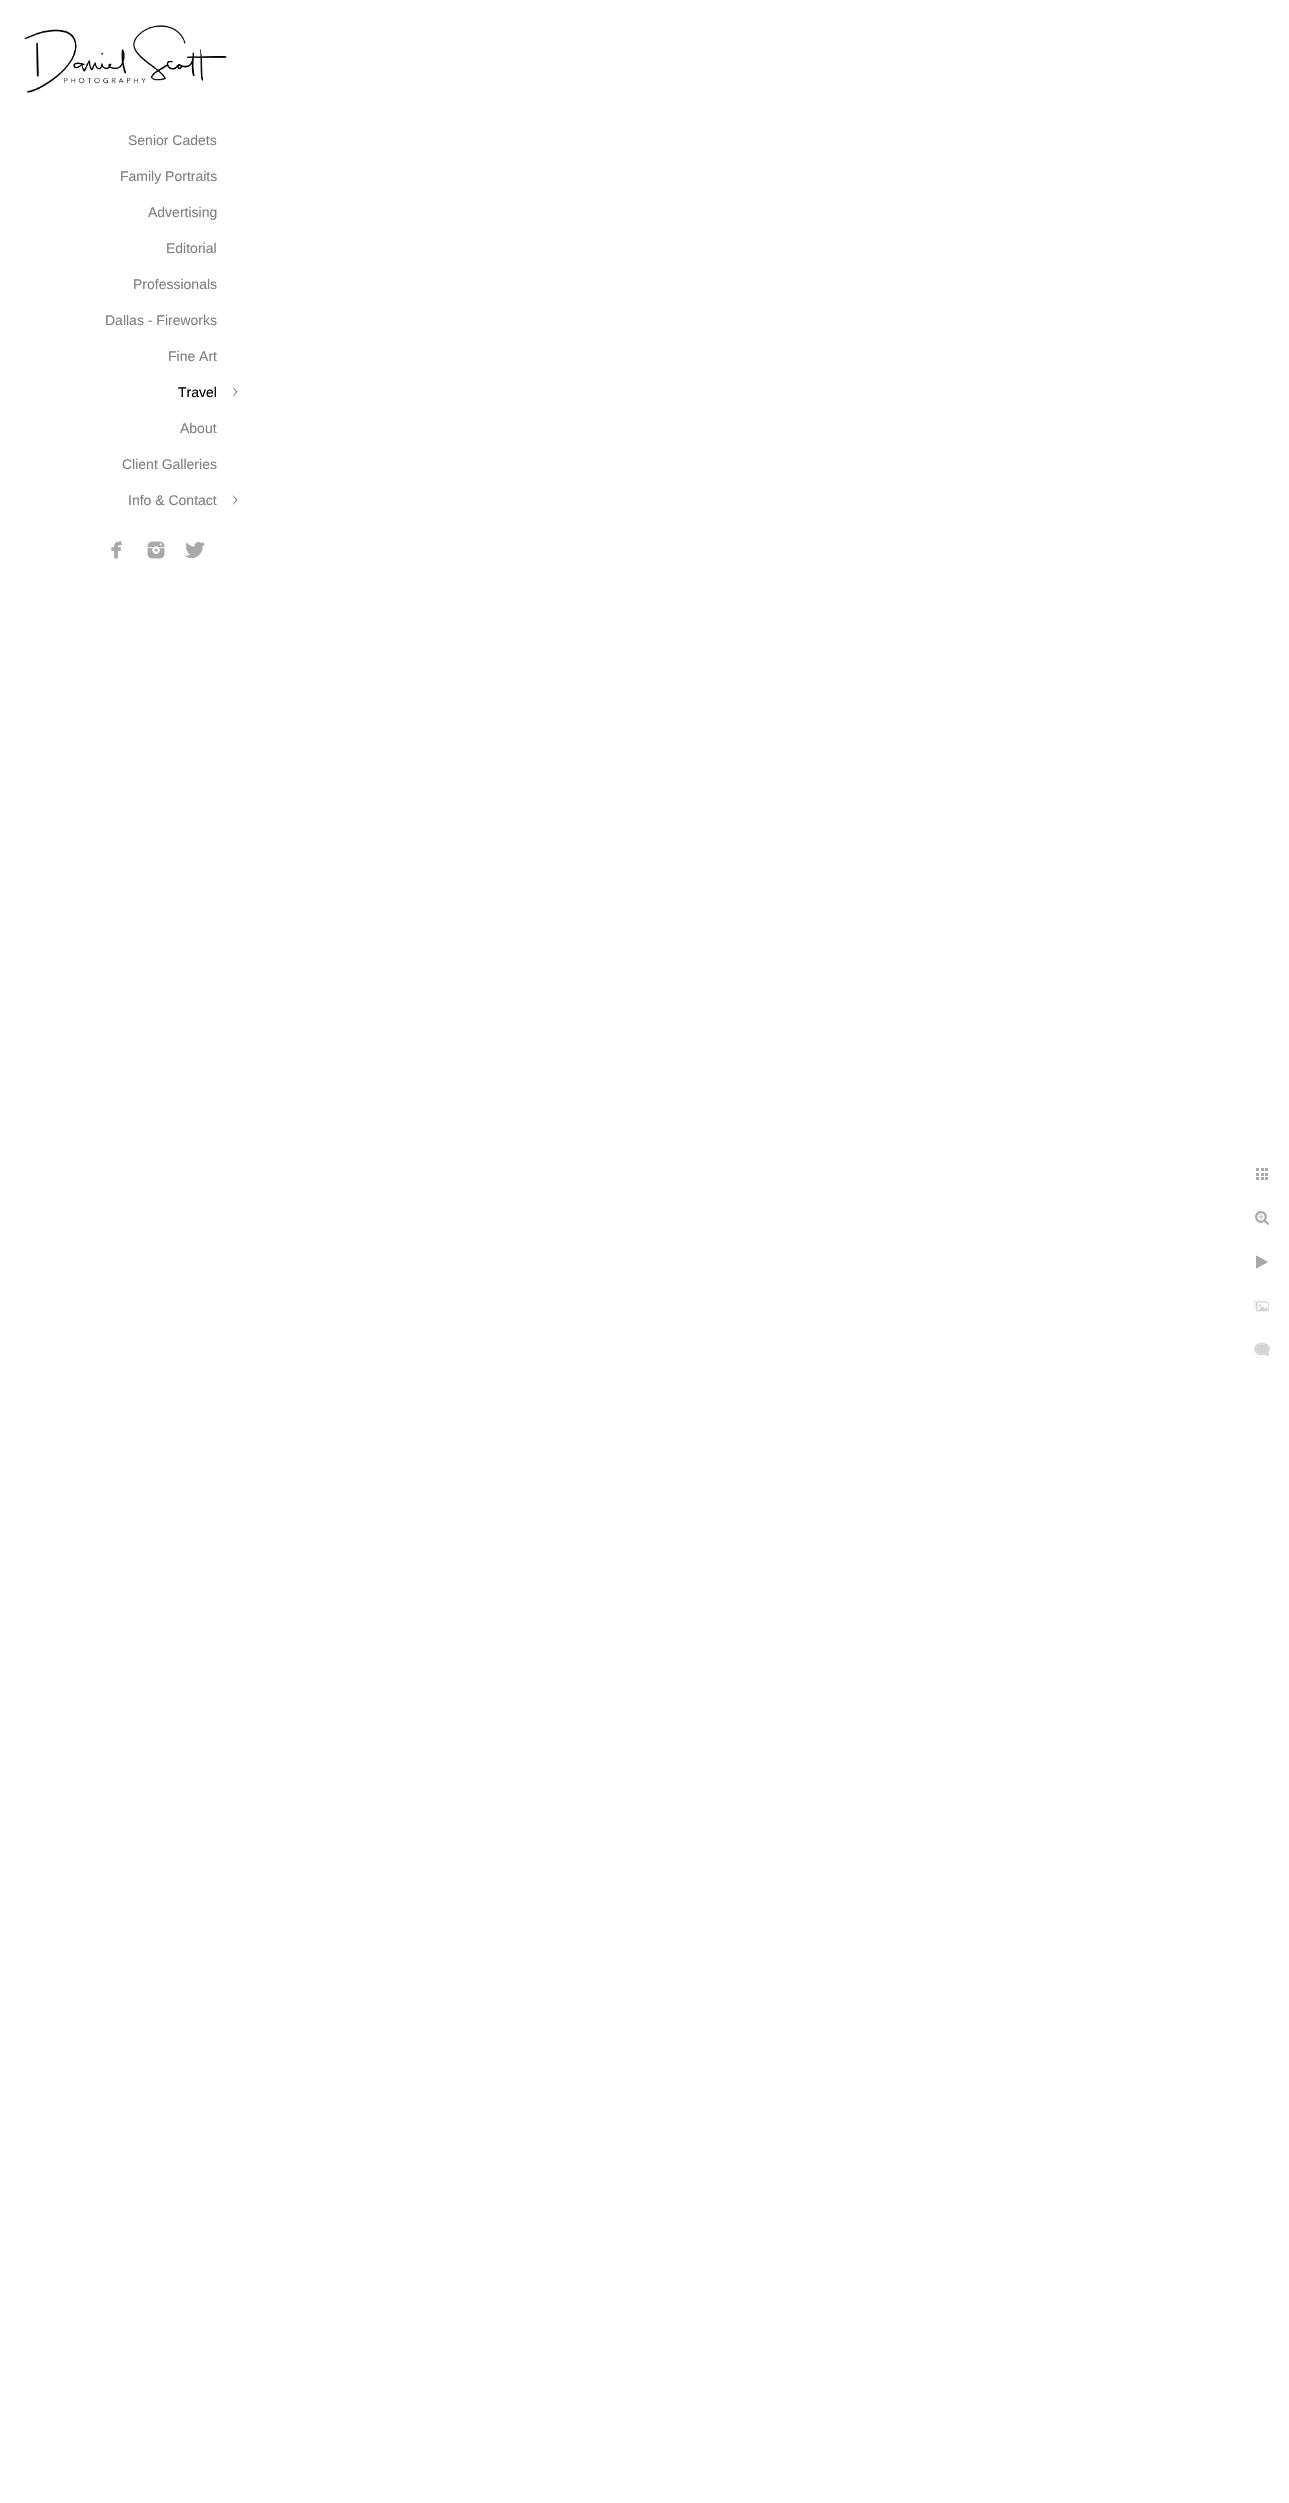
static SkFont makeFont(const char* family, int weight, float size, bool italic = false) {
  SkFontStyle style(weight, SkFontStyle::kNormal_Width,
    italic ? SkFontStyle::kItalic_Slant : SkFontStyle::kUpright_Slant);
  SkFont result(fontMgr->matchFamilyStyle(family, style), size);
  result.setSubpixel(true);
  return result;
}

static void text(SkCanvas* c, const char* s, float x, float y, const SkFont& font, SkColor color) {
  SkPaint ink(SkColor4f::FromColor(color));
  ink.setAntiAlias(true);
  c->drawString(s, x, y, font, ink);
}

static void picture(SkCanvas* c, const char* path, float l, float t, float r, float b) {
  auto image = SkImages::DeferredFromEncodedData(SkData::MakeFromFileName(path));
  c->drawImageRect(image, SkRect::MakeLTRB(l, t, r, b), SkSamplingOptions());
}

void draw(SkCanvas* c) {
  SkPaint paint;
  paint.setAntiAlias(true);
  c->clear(0xffffffff);
  picture(c, "img_01.png", 24, 25, 227, 93);
  SkFont face1 = makeFont("Liberation Sans", 400, 14);
  text(c, "Senior Cadets", 128, 145, face1, 0xff808080);
  text(c, "Family Portraits", 120, 181, face1, 0xff808080);
  text(c, "Advertising", 148, 217, face1, 0xff808080);
  text(c, "Editorial", 166, 253, face1, 0xff808080);
  text(c, "Professionals", 133, 289, face1, 0xff808080);
  text(c, "Dallas - Fireworks", 105, 325, face1, 0xff808080);
  text(c, "Fine Art", 168, 361, face1, 0xff808080);
  text(c, "Travel", 178, 397, face1, 0xff000000);
  picture(c, "img_02.png", 232, 387, 238, 397);
  text(c, "About", 180, 433, face1, 0xff808080);
  text(c, "Client Galleries", 122, 469, face1, 0xff808080);
  text(c, "Info & Contact", 128, 505, face1, 0xff808080);
  picture(c, "img_02.png", 232, 495, 238, 505);
  picture(c, "img_03.png", 111, 541, 122, 559);
  picture(c, "img_04.png", 147, 541, 165, 559);
  picture(c, "img_05.png", 185, 542, 205, 558);
  picture(c, "img_06.png", 1256, 1168, 1268, 1180);
  picture(c, "img_07.png", 1255, 1211, 1269, 1225);
  picture(c, "img_08.png", 1256, 1255, 1268, 1269);
  picture(c, "img_09.png", 1254, 1300, 1269, 1312);
  picture(c, "img_10.png", 1254, 1342, 1270, 1356);
}
